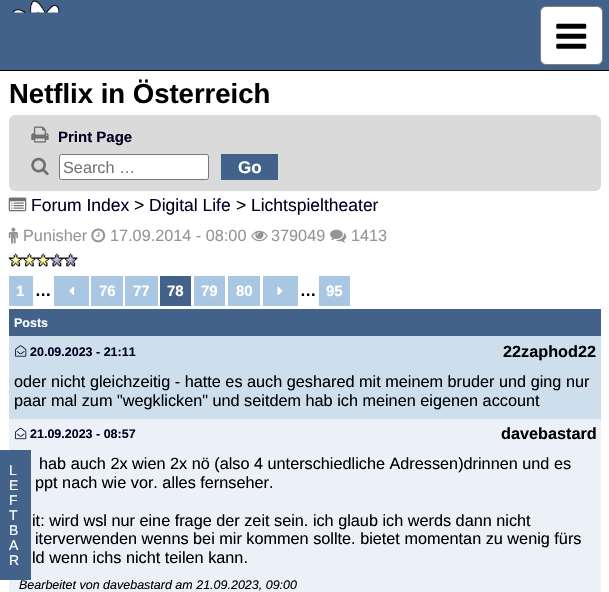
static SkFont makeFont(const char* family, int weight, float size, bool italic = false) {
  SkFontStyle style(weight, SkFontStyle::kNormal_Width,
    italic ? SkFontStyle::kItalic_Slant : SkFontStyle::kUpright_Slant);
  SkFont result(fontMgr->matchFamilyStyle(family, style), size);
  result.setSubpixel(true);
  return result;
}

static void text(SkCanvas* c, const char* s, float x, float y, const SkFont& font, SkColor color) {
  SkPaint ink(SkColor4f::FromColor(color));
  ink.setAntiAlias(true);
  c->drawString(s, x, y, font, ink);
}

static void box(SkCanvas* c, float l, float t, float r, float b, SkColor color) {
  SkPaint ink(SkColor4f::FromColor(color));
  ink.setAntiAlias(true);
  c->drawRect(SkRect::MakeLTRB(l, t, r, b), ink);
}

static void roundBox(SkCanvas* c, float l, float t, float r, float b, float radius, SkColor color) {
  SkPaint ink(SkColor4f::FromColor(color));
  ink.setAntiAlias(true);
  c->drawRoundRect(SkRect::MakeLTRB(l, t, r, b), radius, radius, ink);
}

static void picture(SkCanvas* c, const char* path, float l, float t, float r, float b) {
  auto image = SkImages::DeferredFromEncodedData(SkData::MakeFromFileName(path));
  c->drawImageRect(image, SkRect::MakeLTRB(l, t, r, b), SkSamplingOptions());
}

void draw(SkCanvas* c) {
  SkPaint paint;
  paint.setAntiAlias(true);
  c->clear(0xffffffff);
  box(c, 0, 0, 609, 70, 0xff426289);
  box(c, 0, 70, 609, 71, 0xff000000);
  paint.setColor(0xffffffff);
  c->drawRoundRect(SkRect::MakeLTRB(540.5f, 6.5f, 602.5f, 64.5f), 5.5f, 5.5f, paint);
  paint.setStyle(SkPaint::kStroke_Style);
  paint.setStrokeWidth(1);
  paint.setColor(0xff808080);
  c->drawRoundRect(SkRect::MakeLTRB(540.5f, 6.5f, 602.5f, 64.5f), 5.5f, 5.5f, paint);
  picture(c, "img_01.png", 556, 23, 587, 49);
  picture(c, "img_02.png", 12, 0, 60, 13);
  SkFont face1 = makeFont("Liberation Sans", 700, 27.5f);
  text(c, "Netflix in Österreich", 9, 103, face1, 0xff000000);
  roundBox(c, 9, 115, 601, 191, 6, 0xffdadada);
  picture(c, "img_03.png", 31, 126, 49, 143);
  SkFont face2 = makeFont("Liberation Sans", 700, 15);
  text(c, "Print Page", 58, 142, face2, 0xff000020);
  picture(c, "img_04.png", 31, 157, 49, 176);
  paint.setStyle(SkPaint::kFill_Style);
  paint.setColor(0xffffffff);
  c->drawRoundRect(SkRect::MakeLTRB(59.5f, 154.5f, 208.5f, 179.5f), 2, 2, paint);
  paint.setStyle(SkPaint::kStroke_Style);
  paint.setColor(0xff767676);
  c->drawRoundRect(SkRect::MakeLTRB(59.5f, 154.5f, 208.5f, 179.5f), 2, 2, paint);
  SkFont face3 = makeFont("Liberation Sans", 400, 16.25f);
  text(c, "Search …", 63, 173, face3, 0xff757575);
  box(c, 221, 154, 278, 180, 0xff426289);
  SkFont face4 = makeFont("Liberation Sans", 700, 17);
  text(c, "Go", 238, 173, face4, 0xffffffff);
  picture(c, "img_05.png", 8, 197, 27, 212);
  SkFont face5 = makeFont("Liberation Sans", 400, 17.5f);
  text(c, "Forum Index", 31, 211, face5, 0xff000020);
  text(c, ">", 134, 211, face5, 0xff000000);
  text(c, "Digital Life", 149, 211, face5, 0xff000020);
  text(c, ">", 236, 211, face5, 0xff000000);
  text(c, "Lichtspieltheater", 251, 211, face5, 0xff000020);
  picture(c, "img_06.png", 8, 227, 18, 244);
  text(c, "Punisher", 23, 241, face3, 0xff959595);
  picture(c, "img_07.png", 91, 228, 106, 243);
  text(c, "17.09.2014 - 08:00", 110, 241, face3, 0xff959595);
  picture(c, "img_08.png", 251, 230, 268, 242);
  text(c, "379049", 271, 241, face3, 0xff959595);
  picture(c, "img_09.png", 330, 229, 347, 243);
  text(c, "1413", 351, 241, face3, 0xff959595);
  picture(c, "img_10.png", 8, 253, 78, 267);
  box(c, 9, 276, 33, 306, 0xffa9c6e3);
  text(c, "1", 16, 296, face2, 0xffffffff);
  SkFont face6 = makeFont("Liberation Sans", 700, 16.25f);
  text(c, "…", 35, 296, face6, 0xff000000);
  box(c, 54, 276, 89, 306, 0xffa9c6e3);
  picture(c, "img_11.png", 69, 286, 75, 296);
  box(c, 91, 276, 123, 306, 0xffa9c6e3);
  text(c, "76", 99, 296, face2, 0xffffffff);
  box(c, 125, 276, 158, 306, 0xffa9c6e3);
  text(c, "77", 133, 296, face2, 0xffffffff);
  box(c, 160, 276, 191, 306, 0xff426289);
  text(c, "78", 167, 296, face2, 0xffffffff);
  box(c, 194, 276, 225, 306, 0xffa9c6e3);
  text(c, "79", 201, 296, face2, 0xffffffff);
  box(c, 228, 276, 260, 306, 0xffa9c6e3);
  text(c, "80", 236, 296, face2, 0xffffffff);
  box(c, 263, 276, 298, 306, 0xffa9c6e3);
  picture(c, "img_12.png", 277, 286, 283, 295);
  text(c, "…", 300, 296, face6, 0xff000000);
  box(c, 319, 276, 350, 306, 0xffa9c6e3);
  text(c, "95", 326, 296, face2, 0xffffffff);
  box(c, 9, 309, 601, 336, 0xff426289);
  SkFont face7 = makeFont("Liberation Sans", 700, 12.5f);
  text(c, "Posts", 14, 327, face7, 0xffffffff);
  box(c, 9, 336, 601, 419, 0xffcddeed);
  text(c, "22zaphod22", 503, 357, face6, 0xff000000);
  picture(c, "img_13.png", 15, 345, 27, 357);
  text(c, "20.09.2023 - 21:11", 30, 356, face7, 0xff000020);
  text(c, "oder nicht gleichzeitig - hatte es auch geshared mit meinem bruder und ging nur", 14, 387, face3, 0xff000000);
  text(c, "paar mal zum \"wegklicken\" und seitdem hab ich meinen eigenen account", 14, 406, face3, 0xff000000);
  box(c, 9, 419, 601, 592, 0xffebf1f7);
  text(c, "davebastard", 501, 439, face6, 0xff000000);
  picture(c, "img_14.png", 15, 427, 27, 440);
  text(c, "21.09.2023 - 08:57", 30, 438, face7, 0xff000020);
  text(c, "hab auch 2x wien 2x nö (also 4 unterschiedliche Adressen)drinnen und es", 39, 469, face3, 0xff000000);
  text(c, "ppt nach wie vor. alles fernseher.", 35, 488, face3, 0xff000000);
  text(c, "it: wird wsl nur eine frage der zeit sein. ich glaub ich werds dann nicht", 32, 526, face3, 0xff000000);
  text(c, "iterverwenden wenns bei mir kommen sollte. bietet momentan zu wenig fürs", 35, 544, face3, 0xff000000);
  text(c, "ld wenn ichs nicht teilen kann.", 32, 563, face3, 0xff000000);
  SkFont face8 = makeFont("Liberation Sans", 400, 12.5f, true);
  text(c, "Bearbeitet von davebastard am 21.09.2023, 09:00", 19, 589, face8, 0xff000000);
  box(c, 0, 450, 31, 580, 0xff426289);
  SkFont face9 = makeFont("Liberation Sans", 400, 14);
  text(c, "L", 9, 475, face9, 0xffffffff);
  text(c, "E", 9, 490, face9, 0xffffffff);
  text(c, "F", 9, 505, face9, 0xffffffff);
  text(c, "T", 9, 520, face9, 0xffffffff);
  text(c, "B", 9, 535, face9, 0xffffffff);
  text(c, "A", 9, 550, face9, 0xffffffff);
  text(c, "R", 9, 565, face9, 0xffffffff);
}
